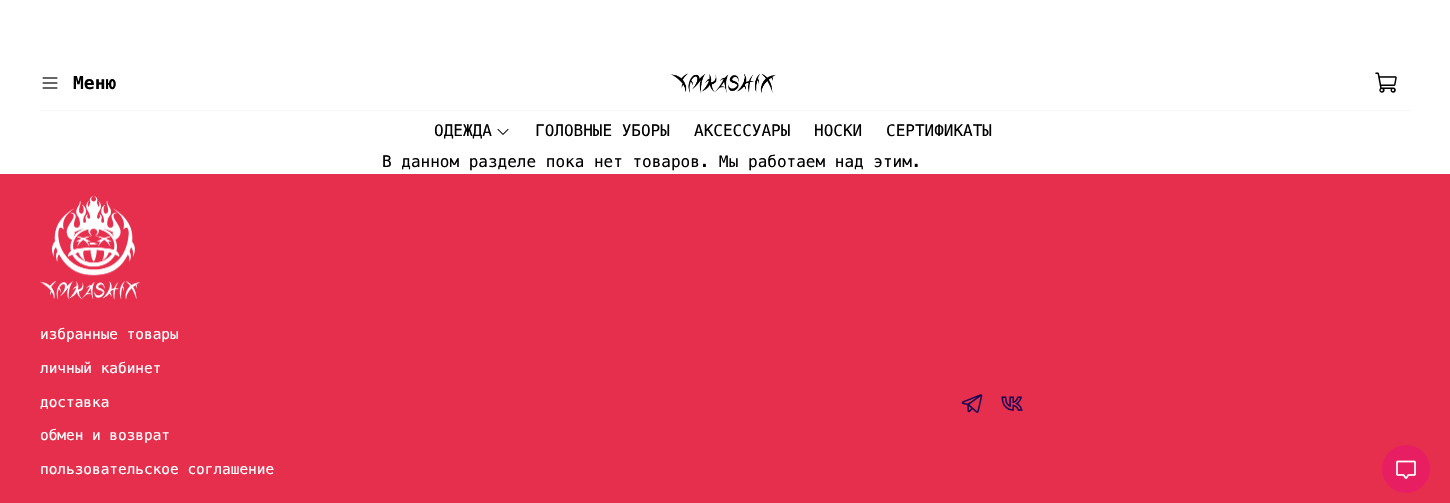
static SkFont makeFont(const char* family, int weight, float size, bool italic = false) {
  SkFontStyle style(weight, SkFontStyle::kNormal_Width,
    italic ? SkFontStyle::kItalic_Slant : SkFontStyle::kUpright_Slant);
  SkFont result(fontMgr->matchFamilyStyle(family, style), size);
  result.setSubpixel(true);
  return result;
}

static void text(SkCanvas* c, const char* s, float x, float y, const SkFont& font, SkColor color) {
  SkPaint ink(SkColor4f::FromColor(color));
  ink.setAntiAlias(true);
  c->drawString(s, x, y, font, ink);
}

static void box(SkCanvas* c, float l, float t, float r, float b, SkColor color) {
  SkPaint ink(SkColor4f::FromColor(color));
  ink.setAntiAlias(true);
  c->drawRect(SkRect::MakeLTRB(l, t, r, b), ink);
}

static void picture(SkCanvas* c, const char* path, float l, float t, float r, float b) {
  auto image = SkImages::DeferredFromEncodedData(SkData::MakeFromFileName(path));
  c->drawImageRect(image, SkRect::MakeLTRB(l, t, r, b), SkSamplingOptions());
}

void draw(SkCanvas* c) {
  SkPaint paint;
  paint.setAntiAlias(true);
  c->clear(0xffffffff);
  picture(c, "img_01.png", 42, 77, 58, 89);
  SkFont face1 = makeFont("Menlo", 700, 18);
  text(c, "Меню", 73, 89, face1, 0xff000000);
  picture(c, "img_02.png", 671, 73, 776, 93);
  picture(c, "img_03.png", 1375, 72, 1397, 93);
  box(c, 40, 110, 1410, 111, 0xfff7f7f7);
  SkFont face2 = makeFont("Menlo", 400, 16);
  text(c, "ОДЕЖДА", 434, 136, face2, 0xff000000);
  picture(c, "img_04.png", 497, 129, 509, 135);
  text(c, "ГОЛОВНЫЕ УБОРЫ", 535, 136, face2, 0xff000000);
  text(c, "АКСЕССУАРЫ", 694, 136, face2, 0xff000000);
  text(c, "НОСКИ", 814, 136, face2, 0xff000000);
  text(c, "СЕРТИФИКАТЫ", 886, 136, face2, 0xff000000);
  text(c, "В данном разделе пока нет товаров. Мы работаем над этим.", 382, 167, face2, 0xff000000);
  box(c, 0, 174, 1450, 503, 0xffe62e4d);
  picture(c, "img_05.png", 40, 196, 140, 300);
  SkFont face3 = makeFont("Menlo", 400, 14.4f);
  text(c, "избранные товары", 40, 339, face3, 0xffffffff);
  text(c, "личный кабинет", 40, 373, face3, 0xffffffff);
  text(c, "доставка", 40, 407, face3, 0xffffffff);
  text(c, "обмен и возврат", 40, 440, face3, 0xffffffff);
  text(c, "пользовательское соглашение", 40, 474, face3, 0xffffffff);
  picture(c, "img_06.png", 961, 394, 983, 413);
  picture(c, "img_07.png", 1001, 396, 1023, 411);
  paint.setColor(0xffe81e63);
  c->drawCircle(1406, 469, 24, paint);
  picture(c, "img_08.png", 1396, 460, 1416, 479);
}
